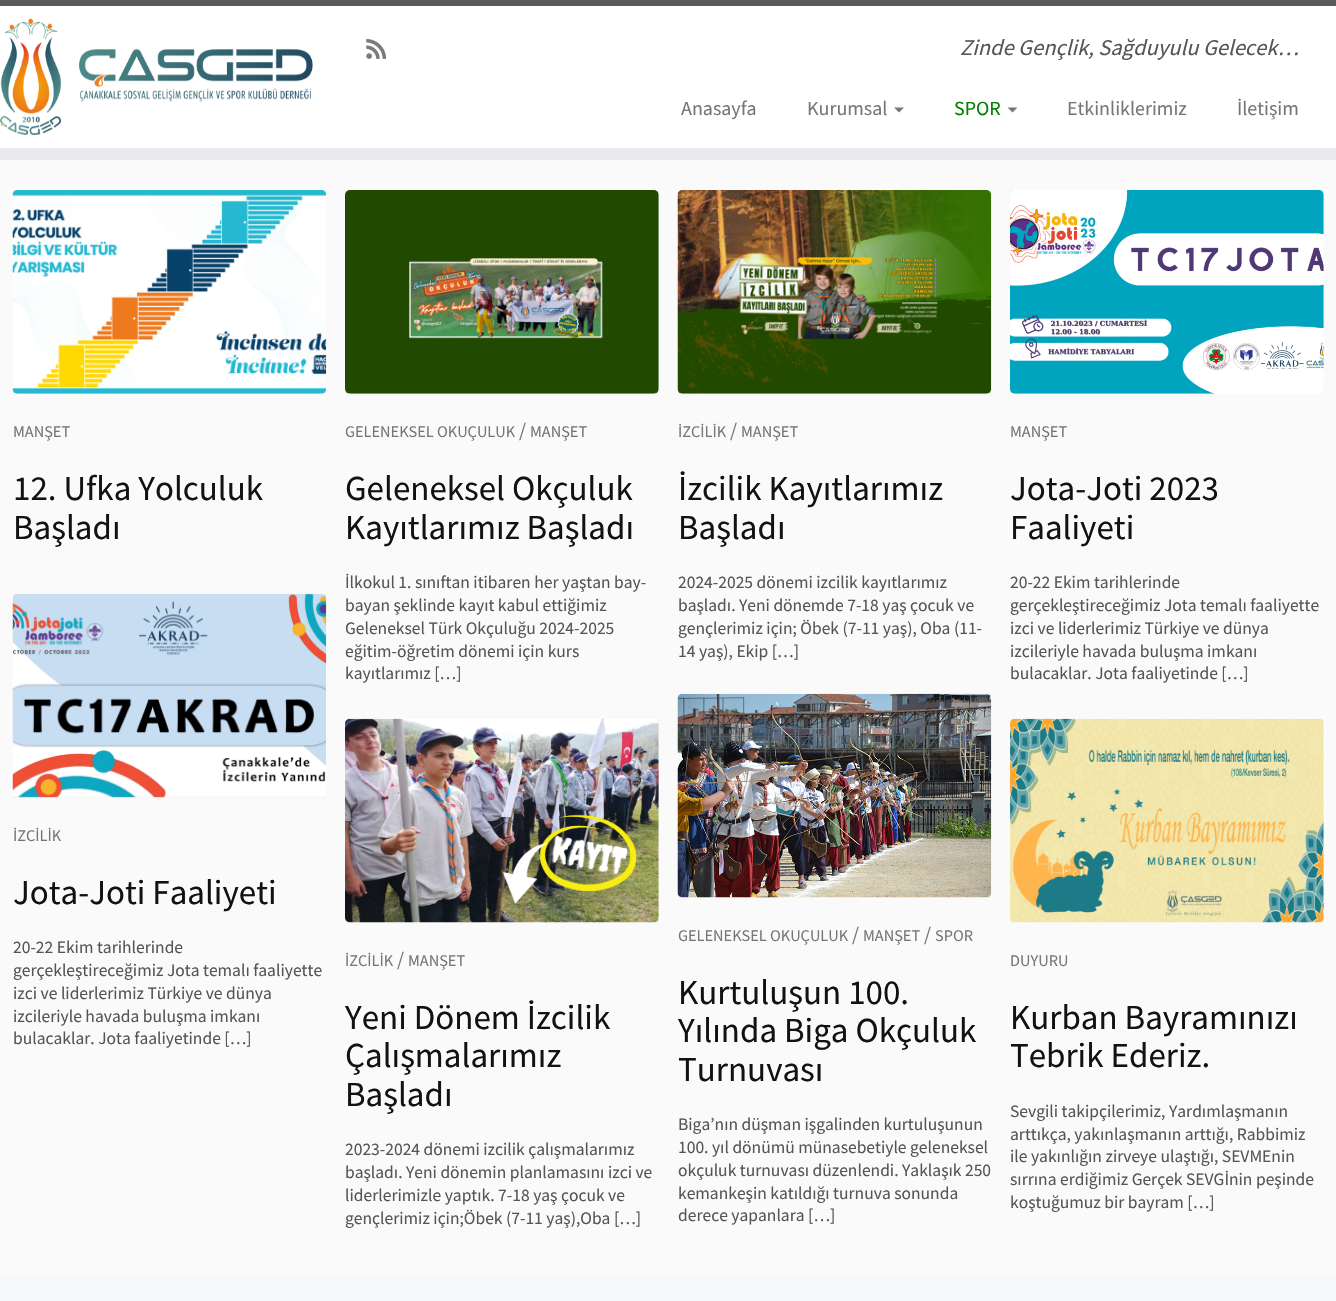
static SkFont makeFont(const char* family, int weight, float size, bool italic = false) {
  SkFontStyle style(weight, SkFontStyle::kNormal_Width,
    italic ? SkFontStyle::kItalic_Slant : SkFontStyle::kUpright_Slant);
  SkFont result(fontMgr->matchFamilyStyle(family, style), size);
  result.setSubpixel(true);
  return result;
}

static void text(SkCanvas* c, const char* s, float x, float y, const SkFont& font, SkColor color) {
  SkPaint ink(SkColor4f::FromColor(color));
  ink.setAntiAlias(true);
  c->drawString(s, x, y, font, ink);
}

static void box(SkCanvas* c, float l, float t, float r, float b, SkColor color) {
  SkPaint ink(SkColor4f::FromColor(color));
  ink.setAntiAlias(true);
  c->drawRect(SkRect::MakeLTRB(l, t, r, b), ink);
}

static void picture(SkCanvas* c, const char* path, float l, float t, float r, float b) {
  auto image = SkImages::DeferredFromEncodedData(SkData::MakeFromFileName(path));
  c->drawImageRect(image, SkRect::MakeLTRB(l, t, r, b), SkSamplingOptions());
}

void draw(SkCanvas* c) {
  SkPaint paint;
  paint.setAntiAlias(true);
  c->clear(0xfffafafa);
  box(c, 0, 6, 1336, 148, 0xffffffff);
  box(c, 0, 0, 1336, 6, 0xff5a5a5a);
  box(c, 0, 148, 1336, 160, 0xffe9eaee);
  picture(c, "img_01.png", 0, 18, 313, 135);
  picture(c, "img_02.png", 366, 39, 387, 59);
  SkFont face1 = makeFont("Source Sans Pro", 400, 22.5f, true);
  text(c, "Zinde Gençlik, Sağduyulu Gelecek…", 960, 55, face1, 0xff555555);
  SkFont face2 = makeFont("Source Sans Pro", 400, 20);
  text(c, "Anasayfa", 681, 115, face2, 0xff767676);
  text(c, "Kurumsal", 807, 115, face2, 0xff767676);
  paint.setColor(0xff777777);
  c->drawPath(SkPathBuilder().moveTo(894, 107.5f).lineTo(904, 107.5f).lineTo(899, 112.5f).close().detach(), paint);
  text(c, "SPOR", 954, 115, face2, 0xff008000);
  c->drawPath(SkPathBuilder().moveTo(1007.5f, 107.5f).lineTo(1017.5f, 107.5f).lineTo(1012.5f, 112.5f).close().detach(), paint);
  text(c, "Etkinliklerimiz", 1067, 115, face2, 0xff767676);
  text(c, "İletişim", 1237, 115, face2, 0xff767676);
  c->save();
  c->clipRect(SkRect::MakeLTRB(13, 190, 326, 394));
  paint.setStyle(SkPaint::kStroke_Style);
  paint.setStrokeWidth(1);
  paint.setColor(0xffebecef);
  c->drawRoundRect(SkRect::MakeLTRB(11.5f, 189.5f, 327.5f, 394.5f), 5.5f, 5.5f, paint);
  c->restore();
  picture(c, "img_03.png", 12, 190, 327, 394);
  SkFont face3 = makeFont("Source Sans Pro", 400, 16.25f);
  text(c, "MANŞET", 13, 437, face3, 0xff767676);
  SkFont face4 = makeFont("Source Sans Pro", 400, 35);
  text(c, "12. Ufka Yolculuk", 13, 500, face4, 0xff121212);
  text(c, "Başladı", 13, 539, face4, 0xff121212);
  c->save();
  c->clipRect(SkRect::MakeLTRB(345, 190, 659, 394));
  c->drawRoundRect(SkRect::MakeLTRB(344.5f, 189.5f, 659.5f, 394.5f), 5.5f, 5.5f, paint);
  c->restore();
  picture(c, "img_04.png", 345, 190, 659, 394);
  text(c, "GELENEKSEL OKUÇULUK", 345, 437, face3, 0xff767676);
  text(c, "/", 519, 437, face2, 0xff767676);
  text(c, "MANŞET", 530, 437, face3, 0xff767676);
  text(c, "Geleneksel Okçuluk", 345, 500, face4, 0xff121212);
  text(c, "Kayıtlarımız Başladı", 345, 539, face4, 0xff121212);
  SkFont face5 = makeFont("Source Sans Pro", 400, 17.5f);
  text(c, "İlkokul 1. sınıftan itibaren her yaştan bay-", 345, 588, face5, 0xff555555);
  text(c, "bayan şeklinde kayıt kabul ettiğimiz", 345, 611, face5, 0xff555555);
  text(c, "Geleneksel Türk Okçuluğu 2024-2025", 345, 634, face5, 0xff555555);
  text(c, "eğitim-öğretim dönemi için kurs", 345, 657, face5, 0xff555555);
  text(c, "kayıtlarımız […]", 345, 679, face5, 0xff555555);
  c->save();
  c->clipRect(SkRect::MakeLTRB(678, 190, 991, 394));
  c->drawRoundRect(SkRect::MakeLTRB(676.5f, 189.5f, 992.5f, 394.5f), 5.5f, 5.5f, paint);
  c->restore();
  picture(c, "img_05.png", 677, 190, 992, 394);
  text(c, "İZCİLİK", 678, 437, face3, 0xff767676);
  text(c, "/", 730, 437, face2, 0xff767676);
  text(c, "MANŞET", 741, 437, face3, 0xff767676);
  text(c, "İzcilik Kayıtlarımız", 678, 500, face4, 0xff121212);
  text(c, "Başladı", 678, 539, face4, 0xff121212);
  text(c, "2024-2025 dönemi izcilik kayıtlarımız", 678, 588, face5, 0xff555555);
  text(c, "başladı. Yeni dönemde 7-18 yaş çocuk ve", 678, 611, face5, 0xff555555);
  text(c, "gençlerimiz için; Öbek (7-11 yaş), Oba (11-", 678, 634, face5, 0xff555555);
  text(c, "14 yaş), Ekip […]", 678, 657, face5, 0xff555555);
  c->save();
  c->clipRect(SkRect::MakeLTRB(1010, 190, 1324, 394));
  c->drawRoundRect(SkRect::MakeLTRB(1009.5f, 189.5f, 1324.5f, 394.5f), 5.5f, 5.5f, paint);
  c->restore();
  picture(c, "img_06.png", 1010, 190, 1324, 394);
  text(c, "MANŞET", 1010, 437, face3, 0xff767676);
  text(c, "Jota-Joti 2023", 1010, 500, face4, 0xff121212);
  text(c, "Faaliyeti", 1010, 539, face4, 0xff121212);
  text(c, "20-22 Ekim tarihlerinde", 1010, 588, face5, 0xff555555);
  text(c, "gerçekleştireceğimiz Jota temalı faaliyette", 1010, 611, face5, 0xff555555);
  text(c, "izci ve liderlerimiz Türkiye ve dünya", 1010, 634, face5, 0xff555555);
  text(c, "izcileriyle havada buluşma imkanı", 1010, 657, face5, 0xff555555);
  text(c, "bulacaklar. Jota faaliyetinde […]", 1010, 679, face5, 0xff555555);
  c->save();
  c->clipRect(SkRect::MakeLTRB(13, 594, 326, 798));
  c->drawRoundRect(SkRect::MakeLTRB(11.5f, 593.5f, 327.5f, 798.5f), 5.5f, 5.5f, paint);
  c->restore();
  picture(c, "img_07.png", 12, 593, 327, 798);
  text(c, "İZCİLİK", 13, 841, face3, 0xff767676);
  text(c, "Jota-Joti Faaliyeti", 13, 904, face4, 0xff121212);
  text(c, "20-22 Ekim tarihlerinde", 13, 953, face5, 0xff555555);
  text(c, "gerçekleştireceğimiz Jota temalı faaliyette", 13, 976, face5, 0xff555555);
  text(c, "izci ve liderlerimiz Türkiye ve dünya", 13, 999, face5, 0xff555555);
  text(c, "izcileriyle havada buluşma imkanı", 13, 1022, face5, 0xff555555);
  text(c, "bulacaklar. Jota faaliyetinde […]", 13, 1044, face5, 0xff555555);
  c->save();
  c->clipRect(SkRect::MakeLTRB(345, 719, 659, 923));
  c->drawRoundRect(SkRect::MakeLTRB(344.5f, 718.5f, 659.5f, 923.5f), 5.5f, 5.5f, paint);
  c->restore();
  picture(c, "img_08.png", 345, 718, 659, 923);
  text(c, "İZCİLİK", 345, 966, face3, 0xff767676);
  text(c, "/", 397, 966, face2, 0xff767676);
  text(c, "MANŞET", 408, 966, face3, 0xff767676);
  text(c, "Yeni Dönem İzcilik", 345, 1029, face4, 0xff121212);
  text(c, "Çalışmalarımız", 345, 1067, face4, 0xff121212);
  text(c, "Başladı", 345, 1106, face4, 0xff121212);
  text(c, "2023-2024 dönemi izcilik çalışmalarımız", 345, 1155, face5, 0xff555555);
  text(c, "başladı. Yeni dönemin planlamasını izci ve", 345, 1178, face5, 0xff555555);
  text(c, "liderlerimizle yaptık. 7-18 yaş çocuk ve", 345, 1201, face5, 0xff555555);
  text(c, "gençlerimiz için;Öbek (7-11 yaş),Oba […]", 345, 1224, face5, 0xff555555);
  c->save();
  c->clipRect(SkRect::MakeLTRB(678, 694, 991, 898));
  c->drawRoundRect(SkRect::MakeLTRB(676.5f, 693.5f, 992.5f, 898.5f), 5.5f, 5.5f, paint);
  c->restore();
  picture(c, "img_09.png", 677, 693, 992, 898);
  text(c, "GELENEKSEL OKUÇULUK", 678, 941, face3, 0xff767676);
  text(c, "/", 852, 941, face2, 0xff767676);
  text(c, "MANŞET", 863, 941, face3, 0xff767676);
  text(c, "/", 924, 941, face2, 0xff767676);
  text(c, "SPOR", 935, 941, face3, 0xff767676);
  text(c, "Kurtuluşun 100.", 678, 1004, face4, 0xff121212);
  text(c, "Yılında Biga Okçuluk", 678, 1042, face4, 0xff121212);
  text(c, "Turnuvası", 678, 1081, face4, 0xff121212);
  text(c, "Biga’nın düşman işgalinden kurtuluşunun", 678, 1130, face5, 0xff555555);
  text(c, "100. yıl dönümü münasebetiyle geleneksel", 678, 1153, face5, 0xff555555);
  text(c, "okçuluk turnuvası düzenlendi. Yaklaşık 250", 678, 1176, face5, 0xff555555);
  text(c, "kemankeşin katıldığı turnuva sonunda", 678, 1199, face5, 0xff555555);
  text(c, "derece yapanlara […]", 678, 1221, face5, 0xff555555);
  c->save();
  c->clipRect(SkRect::MakeLTRB(1010, 719, 1324, 923));
  c->drawRoundRect(SkRect::MakeLTRB(1009.5f, 718.5f, 1324.5f, 923.5f), 5.5f, 5.5f, paint);
  c->restore();
  picture(c, "img_10.png", 1010, 718, 1324, 923);
  text(c, "DUYURU", 1010, 966, face3, 0xff767676);
  text(c, "Kurban Bayramınızı", 1010, 1029, face4, 0xff121212);
  text(c, "Tebrik Ederiz.", 1010, 1067, face4, 0xff121212);
  text(c, "Sevgili takipçilerimiz, Yardımlaşmanın", 1010, 1117, face5, 0xff555555);
  text(c, "arttıkça, yakınlaşmanın arttığı, Rabbimiz", 1010, 1140, face5, 0xff555555);
  text(c, "ile yakınlığın zirveye ulaştığı, SEVMEnin", 1010, 1162, face5, 0xff555555);
  text(c, "sırrına erdiğimiz Gerçek SEVGİnin peşinde", 1010, 1185, face5, 0xff555555);
  text(c, "koştuğumuz bir bayram […]", 1010, 1208, face5, 0xff555555);
  box(c, 0, 1275, 1336, 1301, 0xfff7f8f9);
}
